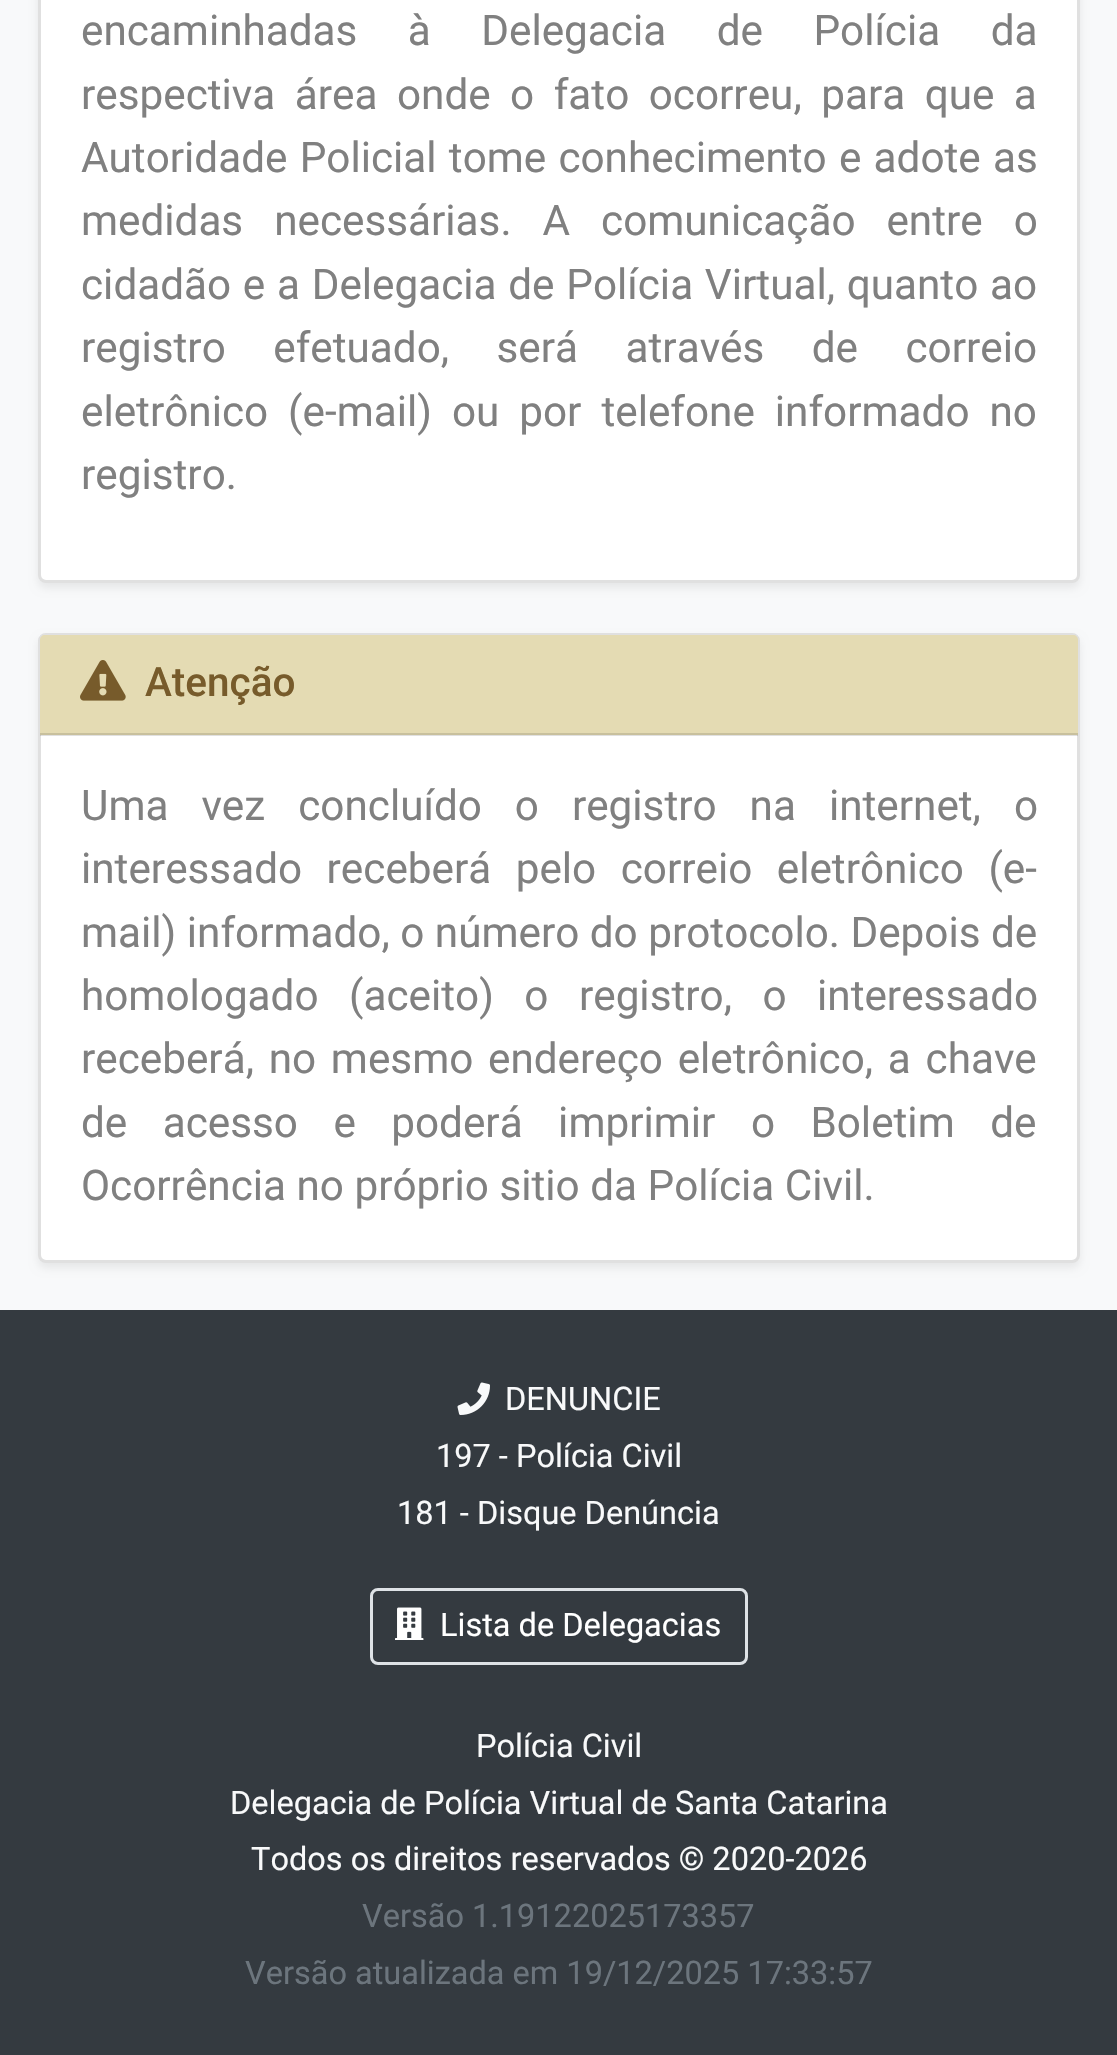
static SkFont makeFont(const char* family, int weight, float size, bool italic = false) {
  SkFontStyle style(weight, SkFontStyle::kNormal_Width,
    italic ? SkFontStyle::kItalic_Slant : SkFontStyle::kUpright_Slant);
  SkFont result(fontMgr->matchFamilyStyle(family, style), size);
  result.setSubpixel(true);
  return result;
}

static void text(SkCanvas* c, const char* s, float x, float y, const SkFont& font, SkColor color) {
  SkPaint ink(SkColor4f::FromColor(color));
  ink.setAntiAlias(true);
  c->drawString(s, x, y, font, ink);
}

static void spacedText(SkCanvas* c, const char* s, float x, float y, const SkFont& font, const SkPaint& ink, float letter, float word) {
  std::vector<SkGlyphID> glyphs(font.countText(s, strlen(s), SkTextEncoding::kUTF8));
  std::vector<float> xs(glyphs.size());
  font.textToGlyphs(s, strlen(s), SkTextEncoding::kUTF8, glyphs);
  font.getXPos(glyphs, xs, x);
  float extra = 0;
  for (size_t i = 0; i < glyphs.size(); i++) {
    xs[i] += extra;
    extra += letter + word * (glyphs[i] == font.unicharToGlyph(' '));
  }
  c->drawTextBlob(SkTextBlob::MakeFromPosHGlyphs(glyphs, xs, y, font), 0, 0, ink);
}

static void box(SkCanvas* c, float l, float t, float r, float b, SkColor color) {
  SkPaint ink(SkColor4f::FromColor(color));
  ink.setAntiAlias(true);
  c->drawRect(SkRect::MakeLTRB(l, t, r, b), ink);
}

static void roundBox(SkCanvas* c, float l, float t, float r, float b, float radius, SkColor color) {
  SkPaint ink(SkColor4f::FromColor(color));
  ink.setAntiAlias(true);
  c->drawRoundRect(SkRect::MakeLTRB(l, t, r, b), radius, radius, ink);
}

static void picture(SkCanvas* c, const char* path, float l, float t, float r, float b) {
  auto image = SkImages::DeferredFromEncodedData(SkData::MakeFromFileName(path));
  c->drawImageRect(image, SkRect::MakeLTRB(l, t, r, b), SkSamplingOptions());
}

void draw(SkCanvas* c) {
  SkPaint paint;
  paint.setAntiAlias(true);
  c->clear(0xfff8f9fa);
  paint.setColor(0x12000000);
  paint.setMaskFilter(SkMaskFilter::MakeBlur(kNormal_SkBlurStyle, 4));
  c->drawRoundRect(SkRect::MakeLTRB(38, -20, 1080, 588), 8, 8, paint);
  paint.setMaskFilter(nullptr);
  roundBox(c, 38, -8, 1080, 583, 8, 0xffffffff);
  paint.setStyle(SkPaint::kStroke_Style);
  paint.setStrokeWidth(3);
  paint.setColor(0x1f000000);
  c->drawRoundRect(SkRect::MakeLTRB(39.5f, -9.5f, 1078.5f, 581.5f), 6.5f, 6.5f, paint);
  SkFont face1 = makeFont("Roboto", 400, 42.25f);
  paint.setStyle(SkPaint::kFill_Style);
  paint.setColor(0xff808080);
  spacedText(c, "encaminhadas à Delegacia de Polícia da", 81, 45, face1, paint, 0, 40);
  spacedText(c, "respectiva área onde o fato ocorreu, para que a", 81, 109, face1, paint, 0, 9);
  spacedText(c, "Autoridade Policial tome conhecimento e adote as", 81, 172, face1, paint, 0, 1.75f);
  spacedText(c, "medidas necessárias. A comunicação entre o", 81, 235, face1, paint, 0, 20.5f);
  spacedText(c, "cidadão e a Delegacia de Polícia Virtual, quanto ao", 81, 299, face1, paint, 0, 1.25f);
  spacedText(c, "registro efetuado, será através de correio", 81, 362, face1, paint, 0, 37);
  spacedText(c, "eletrônico (e-mail) ou por telefone informado no", 81, 426, face1, paint, 0, 9.5f);
  text(c, "registro.", 81, 489, face1, 0xff808080);
  paint.setColor(0x12000000);
  paint.setMaskFilter(SkMaskFilter::MakeBlur(kNormal_SkBlurStyle, 4));
  c->drawRoundRect(SkRect::MakeLTRB(38, 638, 1080, 1268), 8, 8, paint);
  paint.setMaskFilter(nullptr);
  roundBox(c, 38, 633, 1080, 1263, 8, 0xffffffff);
  paint.setStyle(SkPaint::kStroke_Style);
  paint.setColor(0x1f000000);
  c->drawRoundRect(SkRect::MakeLTRB(39.5f, 634.5f, 1078.5f, 1261.5f), 6.5f, 6.5f, paint);
  paint.setStyle(SkPaint::kFill_Style);
  paint.setColor(0xffe4dbb3);
  c->drawPath(SkPathBuilder().moveTo(45, 635).lineTo(1073, 635).cubicTo(1076, 635, 1078, 637, 1078, 640).lineTo(1078, 735).lineTo(40, 735).lineTo(40, 640).cubicTo(40, 637, 42, 635, 45, 635).close().detach(), paint);
  box(c, 40, 733, 1078, 736, 0x1f000000);
  picture(c, "img_01.png", 80, 660, 126, 701);
  SkFont face2 = makeFont("Roboto", 500, 40.5f);
  text(c, "Atenção", 145, 696, face2, 0xff775b2b);
  paint.setColor(0xff808080);
  spacedText(c, "Uma vez concluído o registro na internet, o", 81, 820, face1, paint, 0, 22.5f);
  spacedText(c, "interessado receberá pelo correio eletrônico (e-", 81, 883, face1, paint, 0, 14);
  text(c, "mail) informado, o número do protocolo. Depois de", 81, 947, face1, 0xff808080);
  spacedText(c, "homologado (aceito) o registro, o interessado", 81, 1010, face1, paint, 0, 20);
  spacedText(c, "receberá, no mesmo endereço eletrônico, a chave", 81, 1073, face1, paint, 0, 4.25f);
  spacedText(c, "de acesso e poderá imprimir o Boletim de", 81, 1137, face1, paint, 0, 25);
  text(c, "Ocorrência no próprio sitio da Polícia Civil.", 81, 1200, face1, 0xff808080);
  box(c, 0, 1310, 1117, 2055, 0xff343a40);
  picture(c, "img_02.png", 457, 1382, 490, 1415);
  SkFont face3 = makeFont("Roboto", 400, 32.5f);
  text(c, "DENUNCIE", 505, 1410, face3, 0xfff8f9fa);
  text(c, "197 - Polícia Civil", 436, 1467, face3, 0xfff8f9fa);
  text(c, "181 - Disque Denúncia", 397, 1524, face3, 0xfff8f9fa);
  paint.setStyle(SkPaint::kStroke_Style);
  paint.setColor(0xffdee2e6);
  c->drawRoundRect(SkRect::MakeLTRB(371.5f, 1589.5f, 746.5f, 1663.5f), 6.5f, 6.5f, paint);
  picture(c, "img_03.png", 395, 1607, 424, 1640);
  text(c, "Lista de Delegacias", 440, 1636, face3, 0xffffffff);
  text(c, "Polícia Civil", 476, 1757, face3, 0xfff8f9fa);
  text(c, "Delegacia de Polícia Virtual de Santa Catarina", 230, 1814, face3, 0xfff8f9fa);
  text(c, "Todos os direitos reservados © 2020-2026", 251, 1870, face3, 0xfff8f9fa);
  text(c, "Versão 1.19122025173357", 362, 1927, face3, 0xff6c757d);
  text(c, "Versão atualizada em 19/12/2025 17:33:57", 245, 1984, face3, 0xff6c757d);
}
